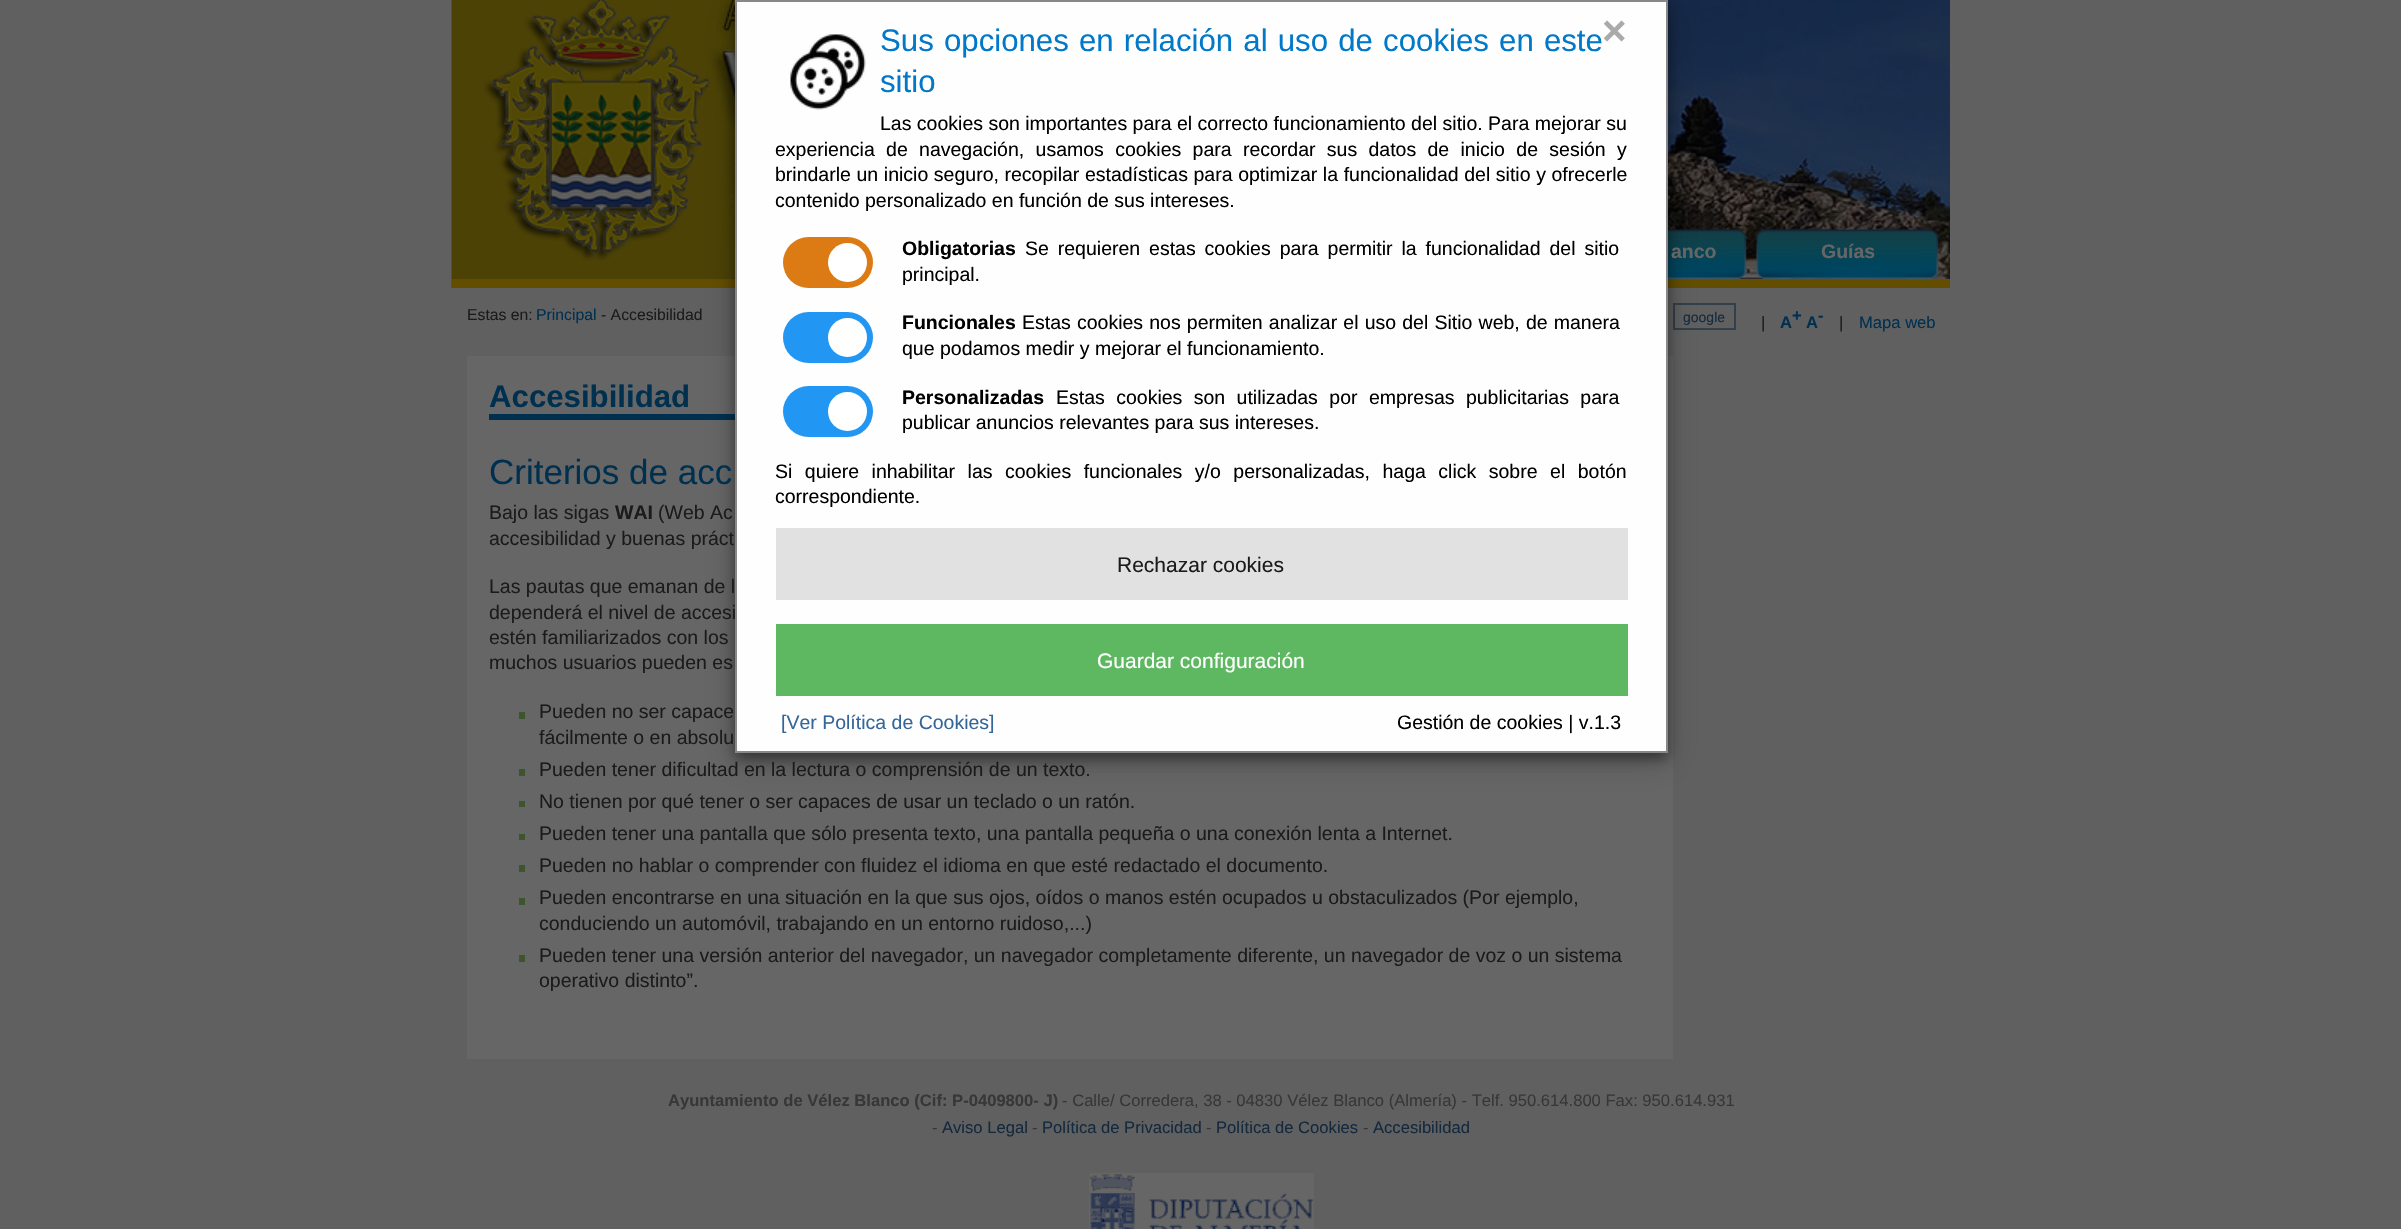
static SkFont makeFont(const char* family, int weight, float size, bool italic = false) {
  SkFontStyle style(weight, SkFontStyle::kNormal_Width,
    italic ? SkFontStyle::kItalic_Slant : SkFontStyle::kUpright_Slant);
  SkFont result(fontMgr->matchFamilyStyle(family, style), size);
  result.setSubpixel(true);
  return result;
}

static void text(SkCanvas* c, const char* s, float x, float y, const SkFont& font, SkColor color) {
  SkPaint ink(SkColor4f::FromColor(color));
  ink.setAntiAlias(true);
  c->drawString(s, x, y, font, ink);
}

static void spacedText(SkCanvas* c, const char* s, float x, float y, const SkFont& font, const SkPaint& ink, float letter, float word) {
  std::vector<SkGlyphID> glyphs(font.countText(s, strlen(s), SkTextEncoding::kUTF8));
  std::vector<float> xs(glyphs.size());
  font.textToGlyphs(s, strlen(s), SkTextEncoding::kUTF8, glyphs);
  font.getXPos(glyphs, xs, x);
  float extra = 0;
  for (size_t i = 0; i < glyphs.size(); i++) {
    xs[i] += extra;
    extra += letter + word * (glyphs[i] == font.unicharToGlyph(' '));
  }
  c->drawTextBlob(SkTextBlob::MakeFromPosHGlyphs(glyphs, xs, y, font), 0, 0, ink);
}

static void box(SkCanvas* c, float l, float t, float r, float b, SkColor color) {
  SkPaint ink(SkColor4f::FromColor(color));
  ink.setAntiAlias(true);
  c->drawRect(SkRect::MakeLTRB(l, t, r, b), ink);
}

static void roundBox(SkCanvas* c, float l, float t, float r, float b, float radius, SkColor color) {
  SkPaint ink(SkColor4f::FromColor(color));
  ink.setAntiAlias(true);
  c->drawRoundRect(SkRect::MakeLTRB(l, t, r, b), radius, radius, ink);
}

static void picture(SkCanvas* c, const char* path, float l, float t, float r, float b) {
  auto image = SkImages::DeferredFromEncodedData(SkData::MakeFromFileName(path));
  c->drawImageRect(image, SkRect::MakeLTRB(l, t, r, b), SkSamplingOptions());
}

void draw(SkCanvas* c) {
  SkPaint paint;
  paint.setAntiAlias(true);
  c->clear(0xff606060);
  picture(c, "img_02.png", 451, 0, 1950, 288);
  box(c, 452, 279, 1950, 288, 0xff634e00);
  picture(c, "img_03.png", 483, 0, 710, 261);
  picture(c, "img_04.png", 1668, 229, 1747, 280);
  paint.setStyle(SkPaint::kStroke_Style);
  paint.setStrokeWidth(2);
  paint.setColor(0xff333f4a);
  c->drawRect(SkRect::MakeLTRB(1674, 304, 1735, 329), paint);
  box(c, 467, 356, 1673, 1059, 0xff666666);
  box(c, 489, 414, 735, 420, 0xff003050);
  paint.setStyle(SkPaint::kFill_Style);
  paint.setColor(0x30000000);
  paint.setMaskFilter(SkMaskFilter::MakeBlur(kNormal_SkBlurStyle, 15));
  c->drawRect(SkRect::MakeLTRB(735, 9, 1668, 762), paint);
  paint.setMaskFilter(nullptr);
  paint.setColor(0x66000000);
  paint.setMaskFilter(SkMaskFilter::MakeBlur(kNormal_SkBlurStyle, 6));
  c->drawRect(SkRect::MakeLTRB(735, 6, 1668, 759), paint);
  paint.setMaskFilter(nullptr);
  paint.setColor(0xfffefefe);
  c->drawRect(SkRect::MakeLTRB(736, 1, 1667, 752), paint);
  paint.setStyle(SkPaint::kStroke_Style);
  paint.setColor(0xff888888);
  c->drawRect(SkRect::MakeLTRB(736, 1, 1667, 752), paint);
  picture(c, "img_01.png", 790, 34, 866, 110);
  SkFont face1 = makeFont("Liberation Sans", 400, 31.2f);
  paint.setStyle(SkPaint::kFill_Style);
  paint.setColor(0xff0178c8);
  spacedText(c, "Sus opciones en relación al uso de cookies en este", 880, 51, face1, paint, 0, 1.5f);
  text(c, "sitio", 880, 92, face1, 0xff0178c8);
  SkFont face2 = makeFont("Liberation Sans", 700, 42);
  text(c, "×", 1602, 45, face2, 0xffaaaaaa);
  SkFont face3 = makeFont("Liberation Sans", 400, 19.5f);
  text(c, "Las cookies son importantes para el correcto funcionamiento del sitio. Para mejorar su", 880, 130, face3, 0xff000000);
  paint.setColor(0xff000000);
  spacedText(c, "experiencia de navegación, usamos cookies para recordar sus datos de inicio de sesión y", 775, 156, face3, paint, 0, 5.9f);
  spacedText(c, "brindarle un inicio seguro, recopilar estadísticas para optimizar la funcionalidad del sitio y ofrecerle", 775, 181, face3, paint, 0, 0.2f);
  text(c, "contenido personalizado en función de sus intereses.", 775, 207, face3, 0xff000000);
  roundBox(c, 783, 237, 873, 288, 25.5f, 0xffdc7b14);
  paint.setColor(0xffffffff);
  c->drawCircle(847.5f, 262.5f, 19.5f, paint);
  SkFont face4 = makeFont("Liberation Sans", 700, 19.5f);
  text(c, "Obligatorias", 902, 255, face4, 0xff000000);
  paint.setColor(0xff000000);
  spacedText(c, "Se requieren estas cookies para permitir la funcionalidad del sitio", 1025, 255, face3, paint, 0, 3.5f);
  text(c, "principal.", 902, 281, face3, 0xff000000);
  roundBox(c, 783, 312, 873, 363, 25.5f, 0xff2196f3);
  paint.setColor(0xffffffff);
  c->drawCircle(847.5f, 337.5f, 19.5f, paint);
  text(c, "Funcionales", 902, 329, face4, 0xff000000);
  paint.setColor(0xff000000);
  spacedText(c, "Estas cookies nos permiten analizar el uso del Sitio web, de manera", 1022, 329, face3, paint, 0, 0.75f);
  text(c, "que podamos medir y mejorar el funcionamiento.", 902, 355, face3, 0xff000000);
  roundBox(c, 783, 386, 873, 437, 25.5f, 0xff2196f3);
  paint.setColor(0xffffffff);
  c->drawCircle(847.5f, 411.5f, 19.5f, paint);
  text(c, "Personalizadas", 902, 404, face4, 0xff000000);
  paint.setColor(0xff000000);
  spacedText(c, "Estas cookies son utilizadas por empresas publicitarias para", 1056, 404, face3, paint, 0, 6);
  text(c, "publicar anuncios relevantes para sus intereses.", 902, 429, face3, 0xff000000);
  spacedText(c, "Si quiere inhabilitar las cookies funcionales y/o personalizadas, haga click sobre el botón", 775, 478, face3, paint, 0, 7.1f);
  text(c, "correspondiente.", 775, 503, face3, 0xff000000);
  box(c, 776, 528, 1628, 600, 0xffe1e1e1);
  SkFont face5 = makeFont("Liberation Sans", 400, 21);
  text(c, "Rechazar cookies", 1117, 572, face5, 0xff1b1b1b);
  box(c, 776, 624, 1628, 696, 0xff5eb761);
  text(c, "Guardar configuración", 1097, 668, face5, 0xffffffff);
  text(c, "[Ver Política de Cookies]", 781, 729, face3, 0xff336699);
  text(c, "Gestión de cookies | v.1.3", 1397, 729, face3, 0xff000000);
  text(c, "anco", 1671, 258, face4, 0xff666666);
  picture(c, "img_05.png", 1756, 229, 1939, 280);
  text(c, "Guías", 1821, 258, face4, 0xff666666);
  SkFont face6 = makeFont("Liberation Sans", 400, 15.75f);
  text(c, "Estas en:", 467, 320, face6, 0xff1b1b1b);
  text(c, "Principal", 536, 320, face6, 0xff003050);
  text(c, "- Accesibilidad", 601, 320, face6, 0xff1b1b1b);
  SkFont face7 = makeFont("Liberation Sans", 400, 14);
  text(c, "google", 1683, 322, face7, 0xff14293d);
  SkFont face8 = makeFont("Liberation Sans", 400, 16.6f);
  text(c, "|", 1761, 328, face8, 0xff1b1b1b);
  SkFont face9 = makeFont("Liberation Sans", 700, 16.6f);
  text(c, "A", 1780, 328, face9, 0xff003050);
  text(c, "+", 1792, 321, face9, 0xff003050);
  text(c, "A", 1806, 328, face9, 0xff003050);
  text(c, "-", 1818, 321, face9, 0xff003050);
  text(c, "|", 1839, 328, face8, 0xff1b1b1b);
  text(c, "Mapa web", 1859, 328, face8, 0xff003050);
  SkFont face10 = makeFont("Liberation Sans", 700, 31.2f);
  text(c, "Accesibilidad", 489, 407, face10, 0xff003050);
  SkFont face11 = makeFont("Liberation Sans", 400, 35);
  text(c, "Criterios de acc", 489, 484, face11, 0xff003050);
  text(c, "Bajo las sigas", 489, 519, face3, 0xff1b1b1b);
  text(c, "WAI", 615, 519, face4, 0xff1b1b1b);
  text(c, "(Web Ac", 658, 519, face3, 0xff1b1b1b);
  text(c, "accesibilidad y buenas práct", 489, 545, face3, 0xff1b1b1b);
  text(c, "Las pautas que emanan de l", 489, 593, face3, 0xff1b1b1b);
  text(c, "dependerá el nivel de accesi", 489, 619, face3, 0xff1b1b1b);
  text(c, "estén familiarizados con los", 489, 644, face3, 0xff1b1b1b);
  text(c, "muchos usuarios pueden es", 489, 669, face3, 0xff1b1b1b);
  box(c, 519, 712, 525, 719, 0xff3e552b);
  text(c, "Pueden no ser capace", 539, 718, face3, 0xff1b1b1b);
  text(c, "fácilmente o en absolu", 539, 744, face3, 0xff1b1b1b);
  box(c, 519, 769, 525, 776, 0xff3e552b);
  text(c, "Pueden tener dificultad en la lectura o comprensión de un texto.", 539, 776, face3, 0xff1b1b1b);
  box(c, 519, 801, 525, 807, 0xff3e552b);
  text(c, "No tienen por qué tener o ser capaces de usar un teclado o un ratón.", 539, 808, face3, 0xff1b1b1b);
  box(c, 519, 834, 525, 840, 0xff3e552b);
  text(c, "Pueden tener una pantalla que sólo presenta texto, una pantalla pequeña o una conexión lenta a Internet.", 539, 840, face3, 0xff1b1b1b);
  box(c, 519, 865, 525, 872, 0xff3e552b);
  text(c, "Pueden no hablar o comprender con fluidez el idioma en que esté redactado el documento.", 539, 872, face3, 0xff1b1b1b);
  box(c, 519, 898, 525, 905, 0xff3e552b);
  text(c, "Pueden encontrarse en una situación en la que sus ojos, oídos o manos estén ocupados u obstaculizados (Por ejemplo,", 539, 904, face3, 0xff1b1b1b);
  text(c, "conduciendo un automóvil, trabajando en un entorno ruidoso,...)", 539, 930, face3, 0xff1b1b1b);
  box(c, 519, 955, 525, 962, 0xff3e552b);
  text(c, "Pueden tener una versión anterior del navegador, un navegador completamente diferente, un navegador de voz o un sistema", 539, 962, face3, 0xff1b1b1b);
  text(c, "operativo distinto”.", 539, 987, face3, 0xff1b1b1b);
  text(c, "Ayuntamiento de Vélez Blanco (Cif: P-0409800- J)", 668, 1106, face9, 0xff373737);
  text(c, "- Calle/ Corredera, 38 - 04830 Vélez Blanco (Almería) - Telf. 950.614.800 Fax: 950.614.931", 1062, 1106, face8, 0xff373737);
  text(c, "-", 932, 1133, face8, 0xff373737);
  text(c, "Aviso Legal", 942, 1133, face8, 0xff14293d);
  text(c, "-", 1032, 1133, face8, 0xff373737);
  text(c, "Política de Privacidad", 1042, 1133, face8, 0xff14293d);
  text(c, "-", 1206, 1133, face8, 0xff373737);
  text(c, "Política de Cookies", 1216, 1133, face8, 0xff14293d);
  text(c, "-", 1363, 1133, face8, 0xff373737);
  text(c, "Accesibilidad", 1373, 1133, face8, 0xff14293d);
  picture(c, "img_06.png", 1089, 1173, 1314, 1229);
}
